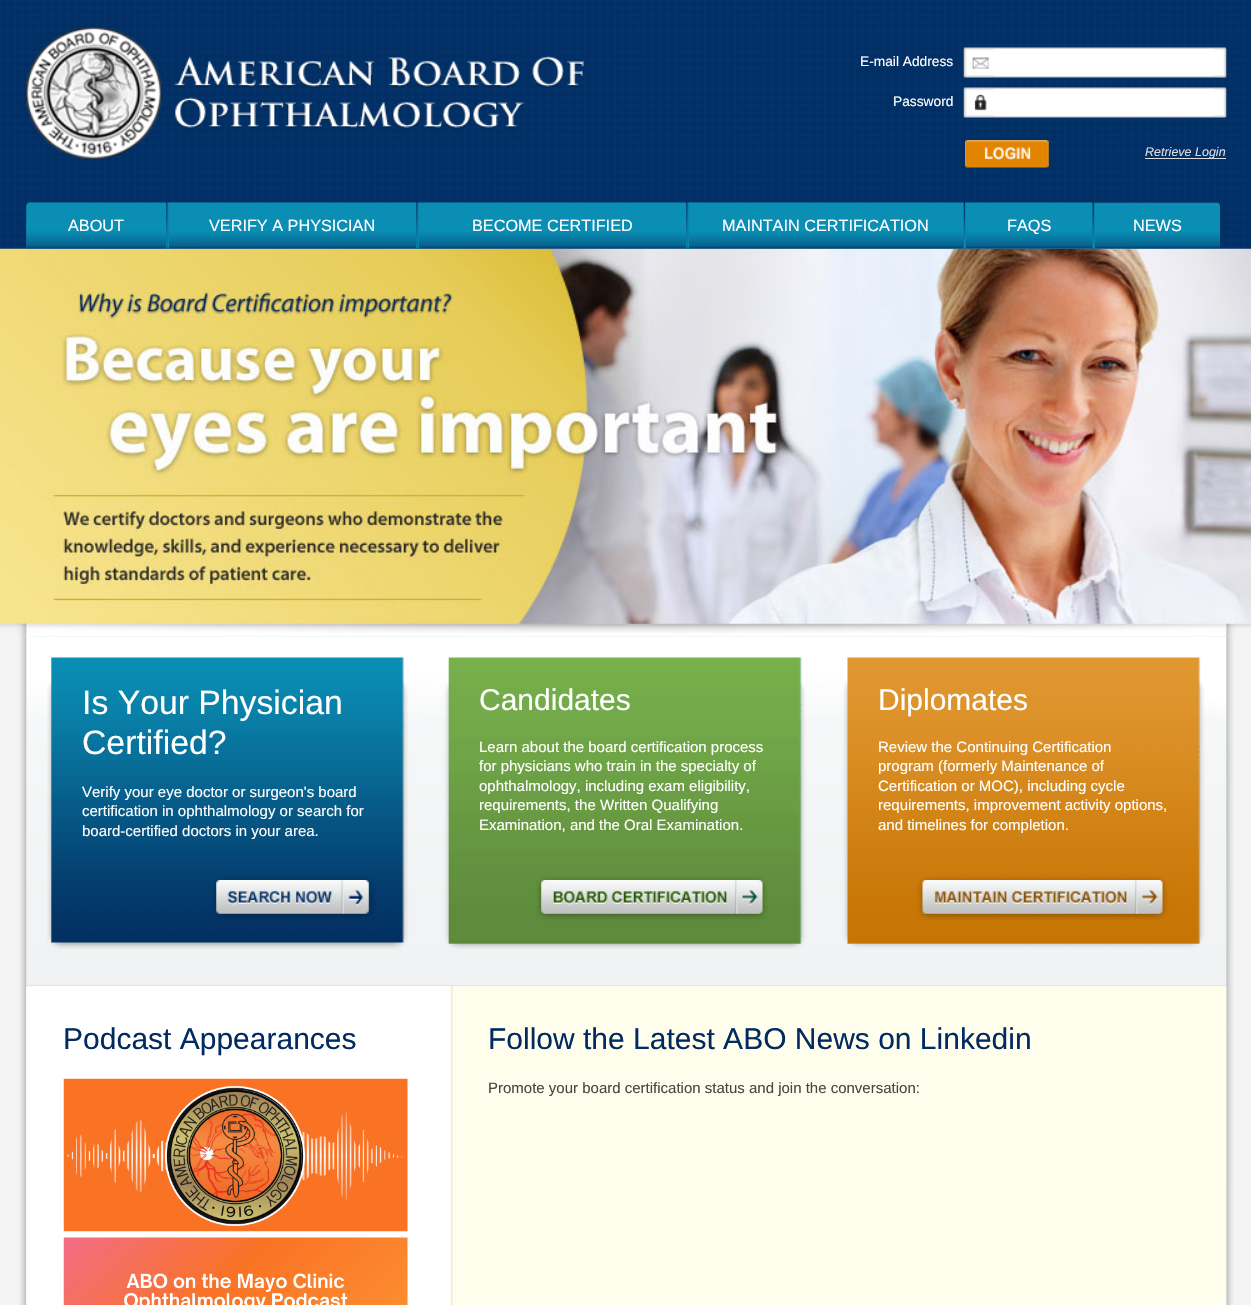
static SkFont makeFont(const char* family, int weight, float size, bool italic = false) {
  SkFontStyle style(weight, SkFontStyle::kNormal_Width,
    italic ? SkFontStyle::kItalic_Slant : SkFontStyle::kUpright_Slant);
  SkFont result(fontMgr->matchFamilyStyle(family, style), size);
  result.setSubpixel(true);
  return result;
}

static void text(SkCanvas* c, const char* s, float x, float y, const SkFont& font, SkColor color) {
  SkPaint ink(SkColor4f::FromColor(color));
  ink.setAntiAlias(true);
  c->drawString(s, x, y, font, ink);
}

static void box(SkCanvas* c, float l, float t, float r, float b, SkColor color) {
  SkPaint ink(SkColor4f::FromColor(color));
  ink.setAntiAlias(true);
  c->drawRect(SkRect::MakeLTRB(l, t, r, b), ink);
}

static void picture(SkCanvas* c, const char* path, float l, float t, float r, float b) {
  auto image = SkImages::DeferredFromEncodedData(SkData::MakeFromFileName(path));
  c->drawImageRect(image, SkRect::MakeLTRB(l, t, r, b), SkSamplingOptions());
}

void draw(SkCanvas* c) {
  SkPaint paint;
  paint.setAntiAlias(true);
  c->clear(0xff033268);
  picture(c, "img_01.png", 1, 1, 1251, 249);
  picture(c, "img_02.png", 26, 27, 585, 159);
  SkFont face1 = makeFont("Liberation Sans", 400, 13.75f);
  text(c, "E-mail Address", 860, 66, face1, 0xffffffff);
  picture(c, "img_03.png", 963, 47, 1227, 78);
  box(c, 994, 49, 1214, 76, 0xffffffff);
  text(c, "Password", 893, 106, face1, 0xffffffff);
  picture(c, "img_04.png", 963, 87, 1227, 118);
  box(c, 994, 89, 1214, 116, 0xffffffff);
  picture(c, "img_05.png", 965, 140, 1049, 168);
  box(c, 1145, 158, 1226, 159, 0xffdddddd);
  SkFont face2 = makeFont("Liberation Sans", 400, 12.5f, true);
  text(c, "Retrieve Login", 1145, 156, face2, 0xffdddddd);
  picture(c, "img_13.png", 0, 248, 1251, 636);
  picture(c, "img_06.png", 26, 204, 1220, 249);
  picture(c, "img_07.png", 26, 202, 167, 249);
  SkFont face3 = makeFont("Liberation Sans", 400, 16.25f);
  text(c, "ABOUT", 68, 231, face3, 0xffffffff);
  picture(c, "img_08.png", 167, 202, 417, 249);
  box(c, 168, 203, 169, 249, 0xff0983aa);
  text(c, "VERIFY A PHYSICIAN", 209, 231, face3, 0xffffffff);
  picture(c, "img_09.png", 417, 202, 687, 249);
  box(c, 418, 203, 419, 249, 0xff0983aa);
  text(c, "BECOME CERTIFIED", 472, 231, face3, 0xffffffff);
  picture(c, "img_10.png", 687, 202, 964, 249);
  box(c, 688, 203, 689, 249, 0xff0983aa);
  text(c, "MAINTAIN CERTIFICATION", 722, 231, face3, 0xffffffff);
  picture(c, "img_11.png", 965, 202, 1093, 249);
  box(c, 965, 203, 966, 249, 0xff0983aa);
  text(c, "FAQS", 1007, 231, face3, 0xffffffff);
  picture(c, "img_12.png", 1093, 202, 1220, 249);
  box(c, 1094, 203, 1095, 249, 0xff0983aa);
  text(c, "NEWS", 1133, 231, face3, 0xffffffff);
  box(c, 0, 636, 1251, 1305, 0xfff4f4f4);
  picture(c, "img_14.png", 19, 636, 1234, 1305);
  SkFont face4 = makeFont("Liberation Sans", 400, 33.75f);
  text(c, "Is Your Physician", 82, 714, face4, 0xffffffff);
  text(c, "Certified?", 82, 754, face4, 0xffffffff);
  SkFont face5 = makeFont("Liberation Sans", 400, 15);
  text(c, "Verify your eye doctor or surgeon's board", 82, 797, face5, 0xffffffff);
  text(c, "certification in ophthalmology or search for", 82, 816, face5, 0xffffffff);
  text(c, "board-certified doctors in your area.", 82, 836, face5, 0xffffffff);
  picture(c, "img_15.png", 216, 880, 369, 914);
  SkFont face6 = makeFont("Liberation Sans", 400, 30);
  text(c, "Candidates", 479, 710, face6, 0xffffffff);
  text(c, "Learn about the board certification process", 479, 752, face5, 0xffffffff);
  text(c, "for physicians who train in the specialty of", 479, 771, face5, 0xffffffff);
  text(c, "ophthalmology, including exam eligibility,", 479, 791, face5, 0xffffffff);
  text(c, "requirements, the Written Qualifying", 479, 810, face5, 0xffffffff);
  text(c, "Examination, and the Oral Examination.", 479, 830, face5, 0xffffffff);
  picture(c, "img_16.png", 541, 880, 763, 914);
  text(c, "Diplomates", 878, 710, face6, 0xffffffff);
  text(c, "Review the Continuing Certification", 878, 752, face5, 0xffffffff);
  text(c, "program (formerly Maintenance of", 878, 771, face5, 0xffffffff);
  text(c, "Certification or MOC), including cycle", 878, 791, face5, 0xffffffff);
  text(c, "requirements, improvement activity options,", 878, 810, face5, 0xffffffff);
  text(c, "and timelines for completion.", 878, 830, face5, 0xffffffff);
  picture(c, "img_17.png", 922, 880, 1163, 914);
  picture(c, "img_18.png", 26, 986, 1227, 1305);
  text(c, "Podcast Appearances", 63, 1049, face6, 0xff012b60);
  picture(c, "img_19.png", 63, 1078, 408, 1232);
  picture(c, "img_20.png", 63, 1237, 408, 1305);
  text(c, "Follow the Latest ABO News on Linkedin", 488, 1049, face6, 0xff012b60);
  text(c, "Promote your board certification status and join the conversation:", 488, 1093, face5, 0xff464646);
}
